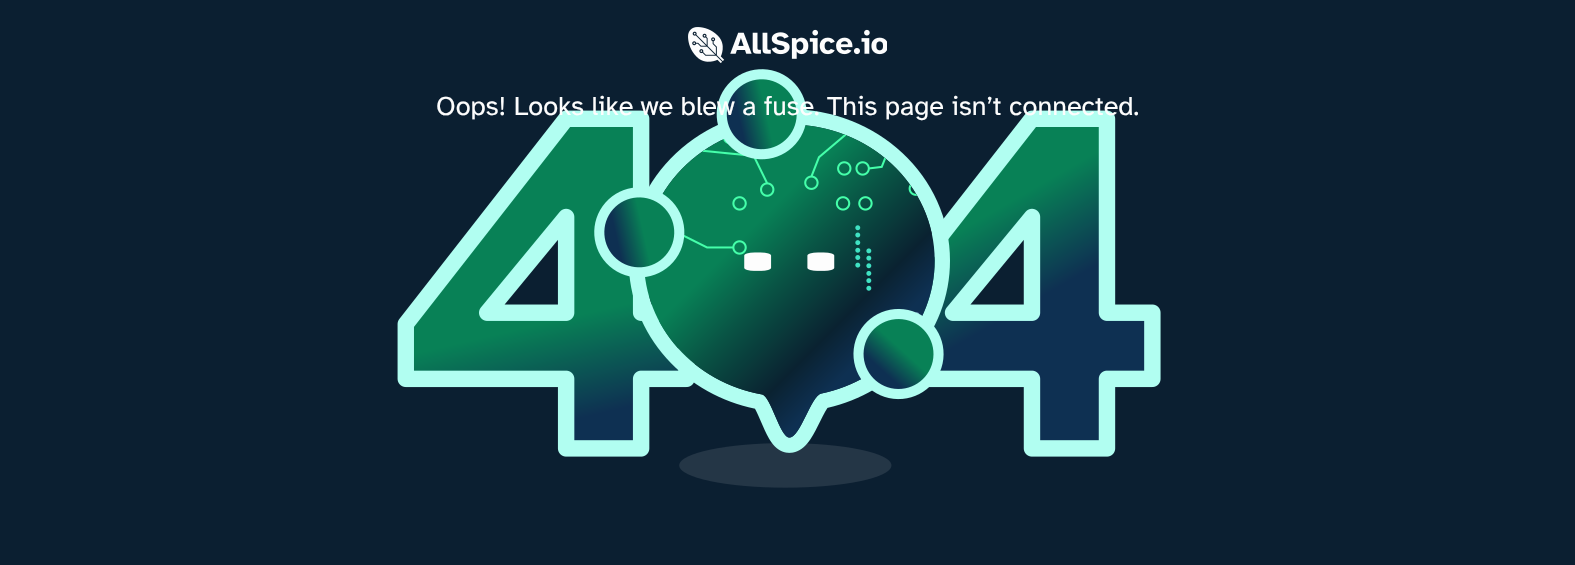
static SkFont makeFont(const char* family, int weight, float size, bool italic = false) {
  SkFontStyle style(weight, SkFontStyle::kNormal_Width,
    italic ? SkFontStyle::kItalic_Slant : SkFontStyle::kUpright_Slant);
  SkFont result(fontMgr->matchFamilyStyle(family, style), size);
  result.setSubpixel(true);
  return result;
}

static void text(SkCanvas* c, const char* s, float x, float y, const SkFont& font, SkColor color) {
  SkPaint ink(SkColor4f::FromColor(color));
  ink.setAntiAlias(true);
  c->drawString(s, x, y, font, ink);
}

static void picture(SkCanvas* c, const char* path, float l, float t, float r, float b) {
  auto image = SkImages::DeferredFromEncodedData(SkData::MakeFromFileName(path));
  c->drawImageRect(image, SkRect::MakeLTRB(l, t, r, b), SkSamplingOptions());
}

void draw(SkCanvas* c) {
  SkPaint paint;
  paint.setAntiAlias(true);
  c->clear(0xff0b1f31);
  picture(c, "img_01.png", 397, 69, 1161, 488);
  picture(c, "img_02.png", 688, 27, 887, 63);
  SkFont face1 = makeFont("Atkinson Hyperlegible", 400, 27);
  text(c, "Oops! Looks like we blew a fuse. This page isn’t connected.", 436, 115, face1, 0xfffdfdfd);
}
